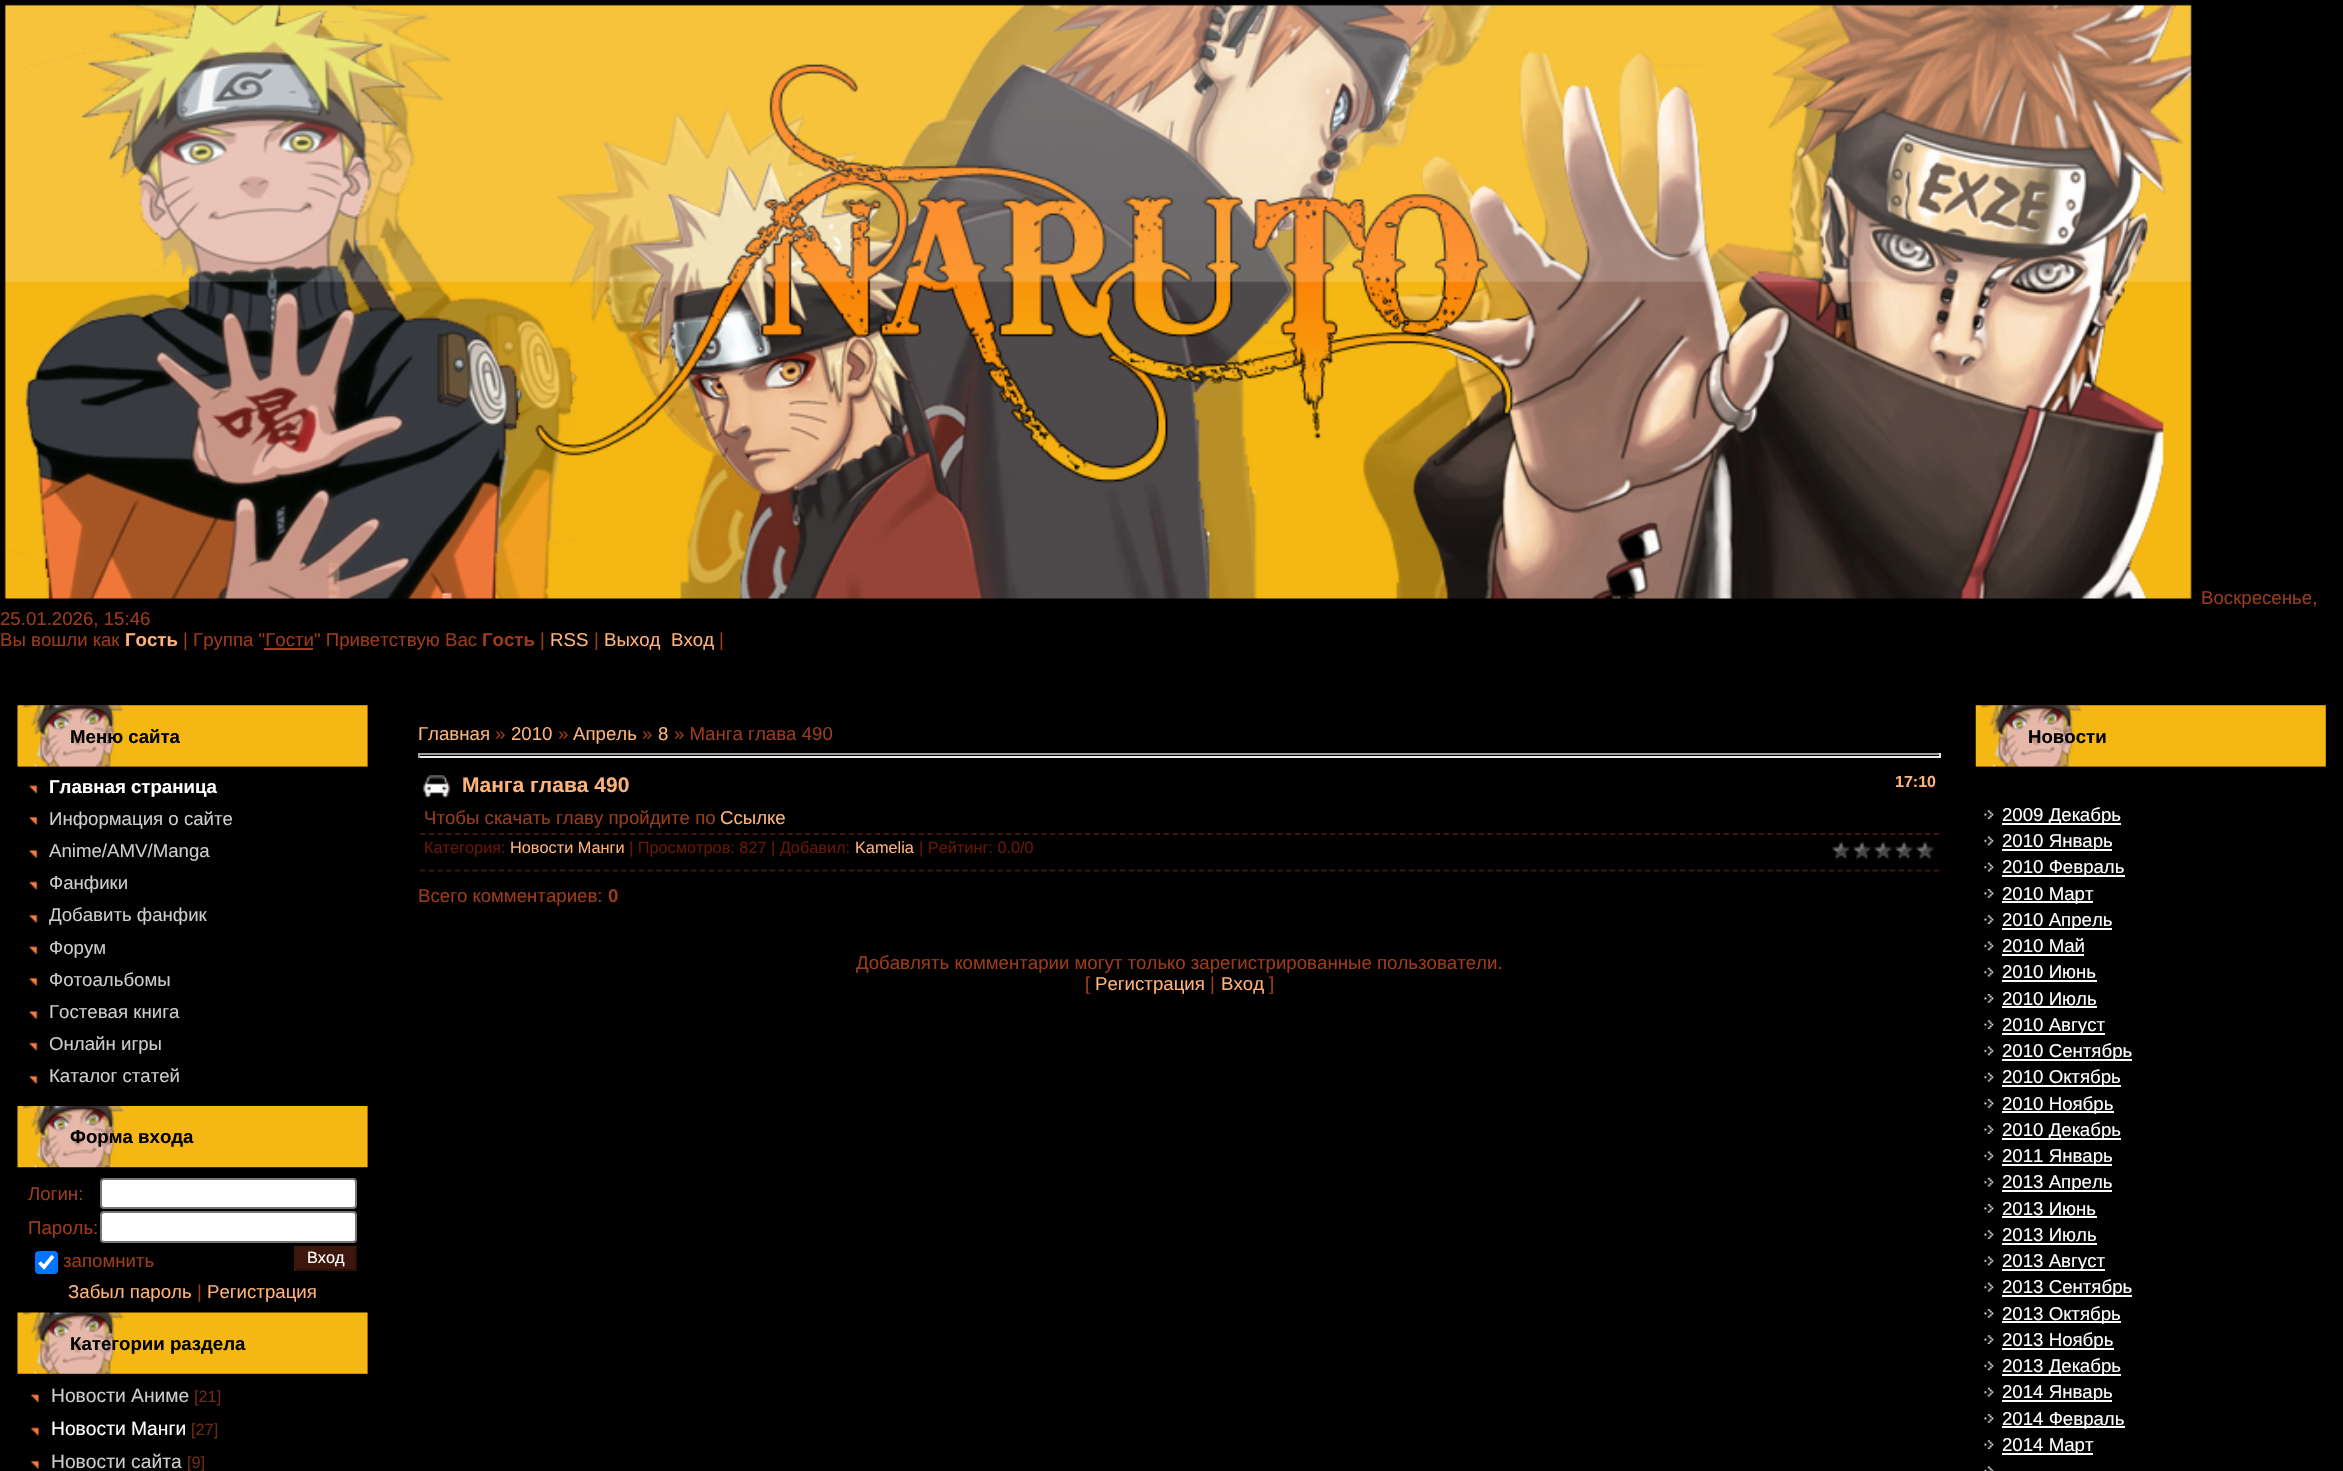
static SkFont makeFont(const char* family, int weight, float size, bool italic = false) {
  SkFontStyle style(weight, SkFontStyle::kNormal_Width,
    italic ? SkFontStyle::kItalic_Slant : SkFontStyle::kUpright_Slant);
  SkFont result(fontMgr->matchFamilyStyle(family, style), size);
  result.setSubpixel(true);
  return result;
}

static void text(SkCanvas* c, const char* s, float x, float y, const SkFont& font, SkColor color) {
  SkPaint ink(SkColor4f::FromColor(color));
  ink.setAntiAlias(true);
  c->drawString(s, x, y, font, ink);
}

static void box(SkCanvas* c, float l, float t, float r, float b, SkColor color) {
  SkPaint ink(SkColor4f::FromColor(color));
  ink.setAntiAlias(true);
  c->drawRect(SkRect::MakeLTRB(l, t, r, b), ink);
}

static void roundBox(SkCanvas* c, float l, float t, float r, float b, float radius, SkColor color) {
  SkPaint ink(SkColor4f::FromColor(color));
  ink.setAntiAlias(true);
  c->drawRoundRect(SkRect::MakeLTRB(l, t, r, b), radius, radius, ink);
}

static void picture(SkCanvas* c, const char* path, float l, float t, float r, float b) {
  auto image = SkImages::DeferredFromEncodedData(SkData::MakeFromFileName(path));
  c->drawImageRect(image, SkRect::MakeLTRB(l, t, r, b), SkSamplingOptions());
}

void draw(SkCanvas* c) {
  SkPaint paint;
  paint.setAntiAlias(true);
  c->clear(0xff000000);
  picture(c, "img_01.png", 4, 4, 2192, 599);
  SkFont face1 = makeFont("Liberation Sans", 400, 18.65f);
  text(c, "Воскресенье,", 2201, 604, face1, 0xff9a3b1b);
  text(c, "25.01.2026, 15:46", 0, 625, face1, 0xff9a3b1b);
  text(c, "Вы вошли как", 0, 646, face1, 0xff9a3b1b);
  SkFont face2 = makeFont("Liberation Sans", 700, 18.65f);
  text(c, "Гость", 125, 646, face2, 0xffffb277);
  text(c, "| Группа \"Гости\" Приветствую Вас", 183, 646, face1, 0xff9a3b1b);
  text(c, "Гость", 482, 646, face2, 0xff9a3b1b);
  text(c, "|", 540, 646, face1, 0xff9a3b1b);
  text(c, "RSS", 550, 646, face1, 0xffffb277);
  text(c, "|", 594, 646, face1, 0xff9a3b1b);
  text(c, "Выход", 604, 646, face1, 0xffffb277);
  text(c, "Вход", 671, 646, face1, 0xffffb277);
  text(c, "|", 719, 646, face1, 0xff9a3b1b);
  box(c, 264, 648, 313, 650, 0xff9a3b1b);
  box(c, 18, 705, 368, 767, 0xff4d1102);
  picture(c, "img_02.png", 17, 705, 368, 767);
  text(c, "Меню сайта", 70, 743, face2, 0xff000000);
  picture(c, "img_03.png", 29, 785, 38, 794);
  text(c, "Главная страница", 49, 793, face2, 0xffffffff);
  picture(c, "img_04.png", 29, 816, 38, 825);
  text(c, "Информация о сайте", 49, 825, face1, 0xffcccccc);
  picture(c, "img_05.png", 29, 850, 38, 858);
  text(c, "Anime/AMV/Manga", 49, 857, face1, 0xffcccccc);
  picture(c, "img_06.png", 29, 881, 38, 890);
  text(c, "Фанфики", 49, 889, face1, 0xffcccccc);
  picture(c, "img_04.png", 29, 914, 38, 923);
  text(c, "Добавить фанфик", 49, 921, face1, 0xffcccccc);
  picture(c, "img_03.png", 29, 946, 38, 955);
  text(c, "Форум", 49, 954, face1, 0xffcccccc);
  picture(c, "img_04.png", 29, 977, 38, 986);
  text(c, "Фотоальбомы", 49, 986, face1, 0xffcccccc);
  picture(c, "img_05.png", 29, 1011, 38, 1019);
  text(c, "Гостевая книга", 49, 1018, face1, 0xffcccccc);
  picture(c, "img_06.png", 29, 1042, 38, 1051);
  text(c, "Онлайн игры", 49, 1050, face1, 0xffcccccc);
  picture(c, "img_04.png", 29, 1075, 38, 1084);
  text(c, "Каталог статей", 49, 1082, face1, 0xffcccccc);
  box(c, 367, 1106, 368, 1167, 0xff4d1102);
  picture(c, "img_07.png", 17, 1106, 368, 1168);
  text(c, "Форма входа", 70, 1143, face2, 0xff000000);
  text(c, "Логин:", 28, 1200, face1, 0xff9a3b1b);
  paint.setColor(0xffffffff);
  c->drawRoundRect(SkRect::MakeLTRB(101, 1179, 356, 1208), 3, 3, paint);
  paint.setStyle(SkPaint::kStroke_Style);
  paint.setStrokeWidth(2);
  paint.setColor(0xff767676);
  c->drawRoundRect(SkRect::MakeLTRB(101, 1179, 356, 1208), 3, 3, paint);
  text(c, "Пароль:", 28, 1234, face1, 0xff9a3b1b);
  paint.setStyle(SkPaint::kFill_Style);
  paint.setColor(0xffffffff);
  c->drawRoundRect(SkRect::MakeLTRB(101, 1212, 356, 1242), 3, 3, paint);
  paint.setStyle(SkPaint::kStroke_Style);
  paint.setColor(0xff767676);
  c->drawRoundRect(SkRect::MakeLTRB(101, 1212, 356, 1242), 3, 3, paint);
  roundBox(c, 35, 1251, 58, 1274, 4, 0xff0075ff);
  paint.setStrokeWidth(3.6f);
  paint.setColor(0xffffffff);
  c->drawPath(SkPathBuilder().moveTo(39.5f, 1262.5f).lineTo(44, 1267).lineTo(53, 1256).detach(), paint);
  text(c, "запомнить", 63, 1267, face1, 0xff9a3b1b);
  box(c, 296, 1246, 355, 1269, 0xff3d170b);
  box(c, 355, 1246, 357, 1271, 0xff290f07);
  box(c, 294, 1269, 357, 1271, 0xff290f07);
  box(c, 294, 1246, 296, 1271, 0xff3d170b);
  SkFont face3 = makeFont("Liberation Sans", 400, 16.3f);
  text(c, "Вход", 307, 1263, face3, 0xffffffff);
  text(c, "Забыл пароль", 68, 1298, face1, 0xffffb277);
  text(c, "|", 197, 1298, face1, 0xff9a3b1b);
  text(c, "Регистрация", 207, 1298, face1, 0xffffb277);
  box(c, 18, 1313, 368, 1374, 0xff4d1102);
  picture(c, "img_08.png", 17, 1312, 368, 1374);
  text(c, "Категории раздела", 70, 1350, face2, 0xff000000);
  picture(c, "img_09.png", 31, 1394, 39, 1403);
  SkFont face4 = makeFont("Liberation Sans", 400, 19.25f);
  text(c, "Новости Аниме", 51, 1402, face4, 0xffcccccc);
  text(c, "[21]", 194, 1402, face3, 0xff6d2a13);
  picture(c, "img_10.png", 31, 1427, 39, 1436);
  text(c, "Новости Манги", 51, 1435, face4, 0xffffffff);
  text(c, "[27]", 191, 1435, face3, 0xff6d2a13);
  picture(c, "img_11.png", 31, 1460, 39, 1469);
  text(c, "Новости сайта", 51, 1468, face4, 0xffcccccc);
  text(c, "[9]", 187, 1468, face3, 0xff6d2a13);
  text(c, "Главная", 418, 740, face1, 0xffffb277);
  text(c, "»", 495, 740, face1, 0xff9a3b1b);
  text(c, "2010", 511, 740, face1, 0xffffb277);
  text(c, "»", 558, 740, face1, 0xff9a3b1b);
  text(c, "Апрель", 573, 740, face1, 0xffffb277);
  text(c, "»", 642, 740, face1, 0xff9a3b1b);
  text(c, "8", 658, 740, face1, 0xffffb277);
  text(c, "» Манга глава 490", 674, 740, face1, 0xff9a3b1b);
  box(c, 418, 753, 1941, 755, 0xff9f9f9f);
  box(c, 1939, 753, 1941, 758, 0xffeeeeee);
  box(c, 418, 756, 1941, 758, 0xffeeeeee);
  box(c, 418, 753, 420, 758, 0xff9f9f9f);
  picture(c, "img_12.png", 423, 775, 450, 798);
  SkFont face5 = makeFont("Liberation Sans", 700, 21);
  text(c, "Манга глава 490", 462, 792, face5, 0xffffb277);
  SkFont face6 = makeFont("Liberation Sans", 700, 16);
  text(c, "17:10", 1895, 787, face6, 0xffffb277);
  text(c, "Чтобы скачать главу пройдите по", 424, 824, face1, 0xff9a3b1b);
  text(c, "Ссылке", 720, 824, face1, 0xffffb277);
  paint.setStrokeWidth(1.8f);
  paint.setColor(0xff3d170b);
  paint.setPathEffect(SkDashPathEffect::Make({{5.25f, 3.5f}}, 0));
  c->drawPath(SkPathBuilder().moveTo(420, 834).lineTo(1939, 834).detach(), paint);
  paint.setPathEffect(nullptr);
  paint.setPathEffect(SkDashPathEffect::Make({{5.25f, 3.5f}}, 0));
  c->drawPath(SkPathBuilder().moveTo(420, 870.5f).lineTo(1939, 870.5f).detach(), paint);
  paint.setPathEffect(nullptr);
  text(c, "Категория:", 424, 853, face3, 0xff671703);
  text(c, "Новости Манги", 510, 853, face3, 0xffffb277);
  text(c, "| Просмотров: 827 | Добавил:", 629, 853, face3, 0xff671703);
  text(c, "Kamelia", 855, 853, face3, 0xffffb277);
  text(c, "| Рейтинг: 0.0/0", 919, 853, face3, 0xff671703);
  picture(c, "img_13.png", 1831, 841, 1935, 860);
  text(c, "Всего комментариев:", 418, 902, face1, 0xff9a3b1b);
  text(c, "0", 608, 902, face2, 0xff9a3b1b);
  text(c, "Добавлять комментарии могут только зарегистрированные пользователи.", 856, 969, face1, 0xff9a3b1b);
  text(c, "[", 1085, 990, face1, 0xff9a3b1b);
  text(c, "Регистрация", 1095, 990, face1, 0xffffb277);
  text(c, "|", 1210, 990, face1, 0xff9a3b1b);
  text(c, "Вход", 1221, 990, face1, 0xffffb277);
  text(c, "]", 1269, 990, face1, 0xff9a3b1b);
  box(c, 1976, 705, 2326, 767, 0xff4d1102);
  picture(c, "img_14.png", 1975, 705, 2326, 767);
  text(c, "Новости", 2028, 743, face2, 0xff000000);
  picture(c, "img_15.png", 1984, 810, 1994, 819);
  box(c, 2002, 823, 2121, 825, 0xffffffff);
  text(c, "2009 Декабрь", 2002, 821, face1, 0xffffffff);
  picture(c, "img_16.png", 1984, 836, 1994, 846);
  box(c, 2002, 849, 2112, 851, 0xffffffff);
  text(c, "2010 Январь", 2002, 847, face1, 0xffffffff);
  picture(c, "img_17.png", 1984, 862, 1994, 872);
  box(c, 2002, 875, 2125, 877, 0xffffffff);
  text(c, "2010 Февраль", 2002, 873, face1, 0xffffffff);
  picture(c, "img_18.png", 1984, 889, 1994, 898);
  box(c, 2002, 901, 2093, 903, 0xffffffff);
  text(c, "2010 Март", 2002, 900, face1, 0xffffffff);
  picture(c, "img_15.png", 1984, 915, 1994, 924);
  box(c, 2002, 928, 2112, 930, 0xffffffff);
  text(c, "2010 Апрель", 2002, 926, face1, 0xffffffff);
  picture(c, "img_16.png", 1984, 941, 1994, 951);
  text(c, "2010 Май", 2002, 952, face1, 0xffffffff);
  box(c, 2002, 954, 2084, 956, 0xffffffff);
  picture(c, "img_17.png", 1984, 967, 1994, 977);
  text(c, "2010 Июнь", 2002, 978, face1, 0xffffffff);
  box(c, 2002, 980, 2097, 982, 0xffffffff);
  picture(c, "img_18.png", 1984, 994, 1994, 1003);
  text(c, "2010 Июль", 2002, 1005, face1, 0xffffffff);
  box(c, 2002, 1006, 2097, 1008, 0xffffffff);
  picture(c, "img_15.png", 1984, 1020, 1994, 1029);
  box(c, 2002, 1033, 2105, 1035, 0xffffffff);
  text(c, "2010 Август", 2002, 1031, face1, 0xffffffff);
  picture(c, "img_16.png", 1984, 1046, 1994, 1056);
  box(c, 2002, 1059, 2132, 1061, 0xffffffff);
  text(c, "2010 Сентябрь", 2002, 1057, face1, 0xffffffff);
  picture(c, "img_17.png", 1984, 1072, 1994, 1082);
  box(c, 2002, 1085, 2121, 1087, 0xffffffff);
  text(c, "2010 Октябрь", 2002, 1083, face1, 0xffffffff);
  picture(c, "img_18.png", 1984, 1099, 1994, 1108);
  box(c, 2002, 1111, 2114, 1113, 0xffffffff);
  text(c, "2010 Ноябрь", 2002, 1110, face1, 0xffffffff);
  picture(c, "img_15.png", 1984, 1125, 1994, 1134);
  box(c, 2002, 1138, 2121, 1140, 0xffffffff);
  text(c, "2010 Декабрь", 2002, 1136, face1, 0xffffffff);
  picture(c, "img_16.png", 1984, 1151, 1994, 1161);
  box(c, 2002, 1164, 2112, 1166, 0xffffffff);
  text(c, "2011 Январь", 2002, 1162, face1, 0xffffffff);
  picture(c, "img_17.png", 1984, 1177, 1994, 1187);
  box(c, 2002, 1190, 2112, 1192, 0xffffffff);
  text(c, "2013 Апрель", 2002, 1188, face1, 0xffffffff);
  picture(c, "img_18.png", 1984, 1204, 1994, 1213);
  text(c, "2013 Июнь", 2002, 1215, face1, 0xffffffff);
  box(c, 2002, 1216, 2097, 1218, 0xffffffff);
  picture(c, "img_15.png", 1984, 1230, 1994, 1239);
  text(c, "2013 Июль", 2002, 1241, face1, 0xffffffff);
  box(c, 2002, 1243, 2097, 1245, 0xffffffff);
  picture(c, "img_16.png", 1984, 1256, 1994, 1266);
  box(c, 2002, 1269, 2105, 1271, 0xffffffff);
  text(c, "2013 Август", 2002, 1267, face1, 0xffffffff);
  picture(c, "img_17.png", 1984, 1282, 1994, 1292);
  box(c, 2002, 1295, 2132, 1297, 0xffffffff);
  text(c, "2013 Сентябрь", 2002, 1293, face1, 0xffffffff);
  picture(c, "img_18.png", 1984, 1309, 1994, 1318);
  box(c, 2002, 1321, 2121, 1323, 0xffffffff);
  text(c, "2013 Октябрь", 2002, 1320, face1, 0xffffffff);
  picture(c, "img_15.png", 1984, 1335, 1994, 1344);
  box(c, 2002, 1348, 2114, 1350, 0xffffffff);
  text(c, "2013 Ноябрь", 2002, 1346, face1, 0xffffffff);
  picture(c, "img_16.png", 1984, 1361, 1994, 1371);
  box(c, 2002, 1374, 2121, 1376, 0xffffffff);
  text(c, "2013 Декабрь", 2002, 1372, face1, 0xffffffff);
  picture(c, "img_17.png", 1984, 1387, 1994, 1397);
  box(c, 2002, 1400, 2112, 1402, 0xffffffff);
  text(c, "2014 Январь", 2002, 1398, face1, 0xffffffff);
  picture(c, "img_18.png", 1984, 1414, 1994, 1423);
  box(c, 2002, 1426, 2125, 1428, 0xffffffff);
  text(c, "2014 Февраль", 2002, 1425, face1, 0xffffffff);
  picture(c, "img_15.png", 1984, 1440, 1994, 1449);
  box(c, 2002, 1453, 2093, 1455, 0xffffffff);
  text(c, "2014 Март", 2002, 1451, face1, 0xffffffff);
  picture(c, "img_19.png", 1984, 1466, 1994, 1471);
}
